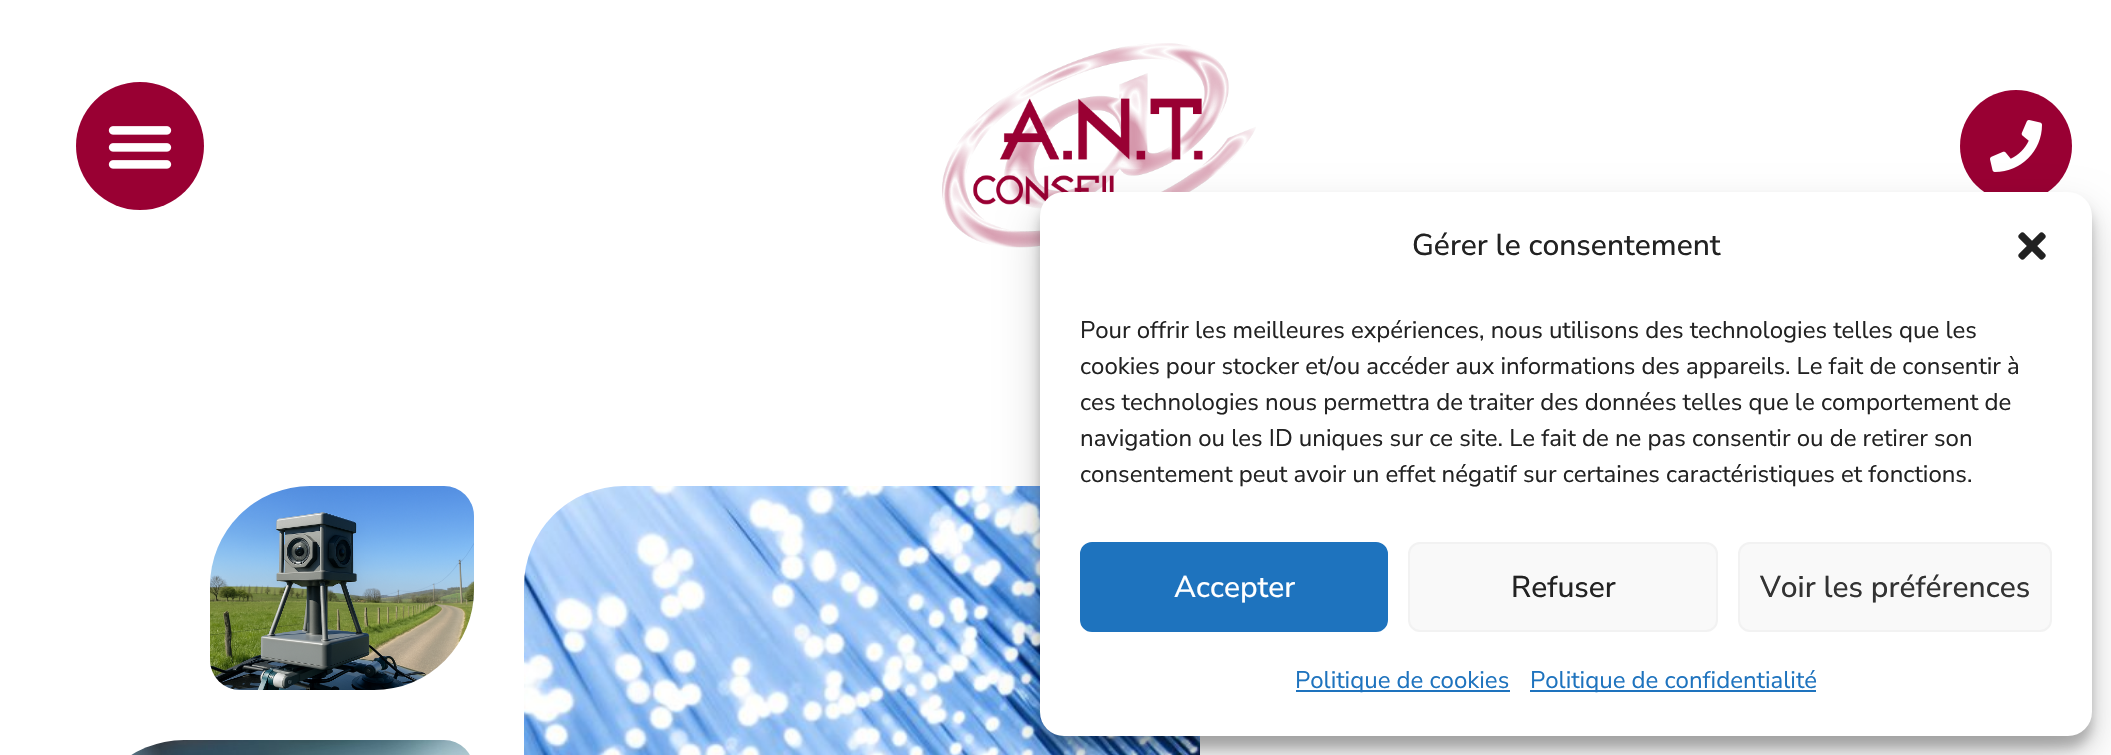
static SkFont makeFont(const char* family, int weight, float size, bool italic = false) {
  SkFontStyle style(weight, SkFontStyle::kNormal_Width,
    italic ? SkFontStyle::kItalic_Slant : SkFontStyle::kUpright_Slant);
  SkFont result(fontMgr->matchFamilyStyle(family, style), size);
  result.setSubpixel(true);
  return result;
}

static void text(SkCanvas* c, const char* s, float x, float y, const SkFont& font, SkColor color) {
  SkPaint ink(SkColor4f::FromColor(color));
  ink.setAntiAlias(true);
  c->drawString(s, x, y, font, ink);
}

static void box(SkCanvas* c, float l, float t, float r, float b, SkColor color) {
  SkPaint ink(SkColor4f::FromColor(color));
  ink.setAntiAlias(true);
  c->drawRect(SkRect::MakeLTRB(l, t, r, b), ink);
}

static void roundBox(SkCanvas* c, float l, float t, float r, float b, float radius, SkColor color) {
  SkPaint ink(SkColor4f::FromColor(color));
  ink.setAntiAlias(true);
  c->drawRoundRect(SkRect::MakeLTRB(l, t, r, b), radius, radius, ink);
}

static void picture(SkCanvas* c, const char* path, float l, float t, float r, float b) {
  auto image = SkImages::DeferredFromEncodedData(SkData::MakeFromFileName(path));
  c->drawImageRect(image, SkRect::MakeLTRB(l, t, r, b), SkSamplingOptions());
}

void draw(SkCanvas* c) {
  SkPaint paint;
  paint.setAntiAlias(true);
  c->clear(0xffffffff);
  paint.setColor(0xff990033);
  c->drawCircle(140, 146, 64, paint);
  picture(c, "img_01.png", 108, 126, 172, 169);
  picture(c, "img_02.png", 942, 43, 1256, 248);
  c->drawCircle(2016, 146, 56, paint);
  picture(c, "img_03.png", 1990, 120, 2042, 172);
  picture(c, "img_04.png", 210, 486, 474, 690);
  picture(c, "img_05.png", 131, 740, 470, 755);
  picture(c, "img_06.png", 524, 486, 1200, 755);
  paint.setColor(0x3b000000);
  paint.setMaskFilter(SkMaskFilter::MakeBlur(kNormal_SkBlurStyle, 6));
  c->drawRoundRect(SkRect::MakeLTRB(1040, 204, 2092, 748), 24, 24, paint);
  paint.setMaskFilter(nullptr);
  paint.setColor(0x30000000);
  paint.setMaskFilter(SkMaskFilter::MakeBlur(kNormal_SkBlurStyle, 20));
  c->drawRoundRect(SkRect::MakeLTRB(1040, 212, 2092, 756), 24, 24, paint);
  paint.setMaskFilter(nullptr);
  roundBox(c, 1040, 192, 2092, 736, 24, 0xffffffff);
  SkFont face1 = makeFont("Nunito Sans", 500, 30);
  text(c, "Gérer le consentement", 1412, 255, face1, 0xff222222);
  picture(c, "img_07.png", 2018, 232, 2046, 260);
  SkFont face2 = makeFont("Nunito Sans", 400, 24);
  text(c, "Pour offrir les meilleures expériences, nous utilisons des technologies telles que les", 1080, 338, face2, 0xff222222);
  text(c, "cookies pour stocker et/ou accéder aux informations des appareils. Le fait de consentir à", 1080, 374, face2, 0xff222222);
  text(c, "ces technologies nous permettra de traiter des données telles que le comportement de", 1080, 410, face2, 0xff222222);
  text(c, "navigation ou les ID uniques sur ce site. Le fait de ne pas consentir ou de retirer son", 1080, 446, face2, 0xff222222);
  text(c, "consentement peut avoir un effet négatif sur certaines caractéristiques et fonctions.", 1080, 482, face2, 0xff222222);
  paint.setColor(0xff1e73be);
  c->drawRoundRect(SkRect::MakeLTRB(1081, 543, 1387, 631), 11, 11, paint);
  paint.setStyle(SkPaint::kStroke_Style);
  paint.setStrokeWidth(2);
  c->drawRoundRect(SkRect::MakeLTRB(1081, 543, 1387, 631), 11, 11, paint);
  text(c, "Accepter", 1174, 597, face1, 0xffffffff);
  paint.setStyle(SkPaint::kFill_Style);
  paint.setColor(0xfff9f9f9);
  c->drawRoundRect(SkRect::MakeLTRB(1409, 543, 1717, 631), 11, 11, paint);
  paint.setStyle(SkPaint::kStroke_Style);
  paint.setColor(0xfff2f2f2);
  c->drawRoundRect(SkRect::MakeLTRB(1409, 543, 1717, 631), 11, 11, paint);
  text(c, "Refuser", 1511, 597, face1, 0xff222222);
  paint.setStyle(SkPaint::kFill_Style);
  paint.setColor(0xfff9f9f9);
  c->drawRoundRect(SkRect::MakeLTRB(1739, 543, 2051, 631), 11, 11, paint);
  paint.setStyle(SkPaint::kStroke_Style);
  paint.setColor(0xfff2f2f2);
  c->drawRoundRect(SkRect::MakeLTRB(1739, 543, 2051, 631), 11, 11, paint);
  text(c, "Voir les préférences", 1760, 597, face1, 0xff333333);
  box(c, 1296, 690, 1510, 692, 0xff1e73be);
  text(c, "Politique de cookies", 1295, 688, face2, 0xff1e73be);
  box(c, 1530, 690, 1816, 692, 0xff1e73be);
  text(c, "Politique de confidentialité", 1530, 688, face2, 0xff1e73be);
}
